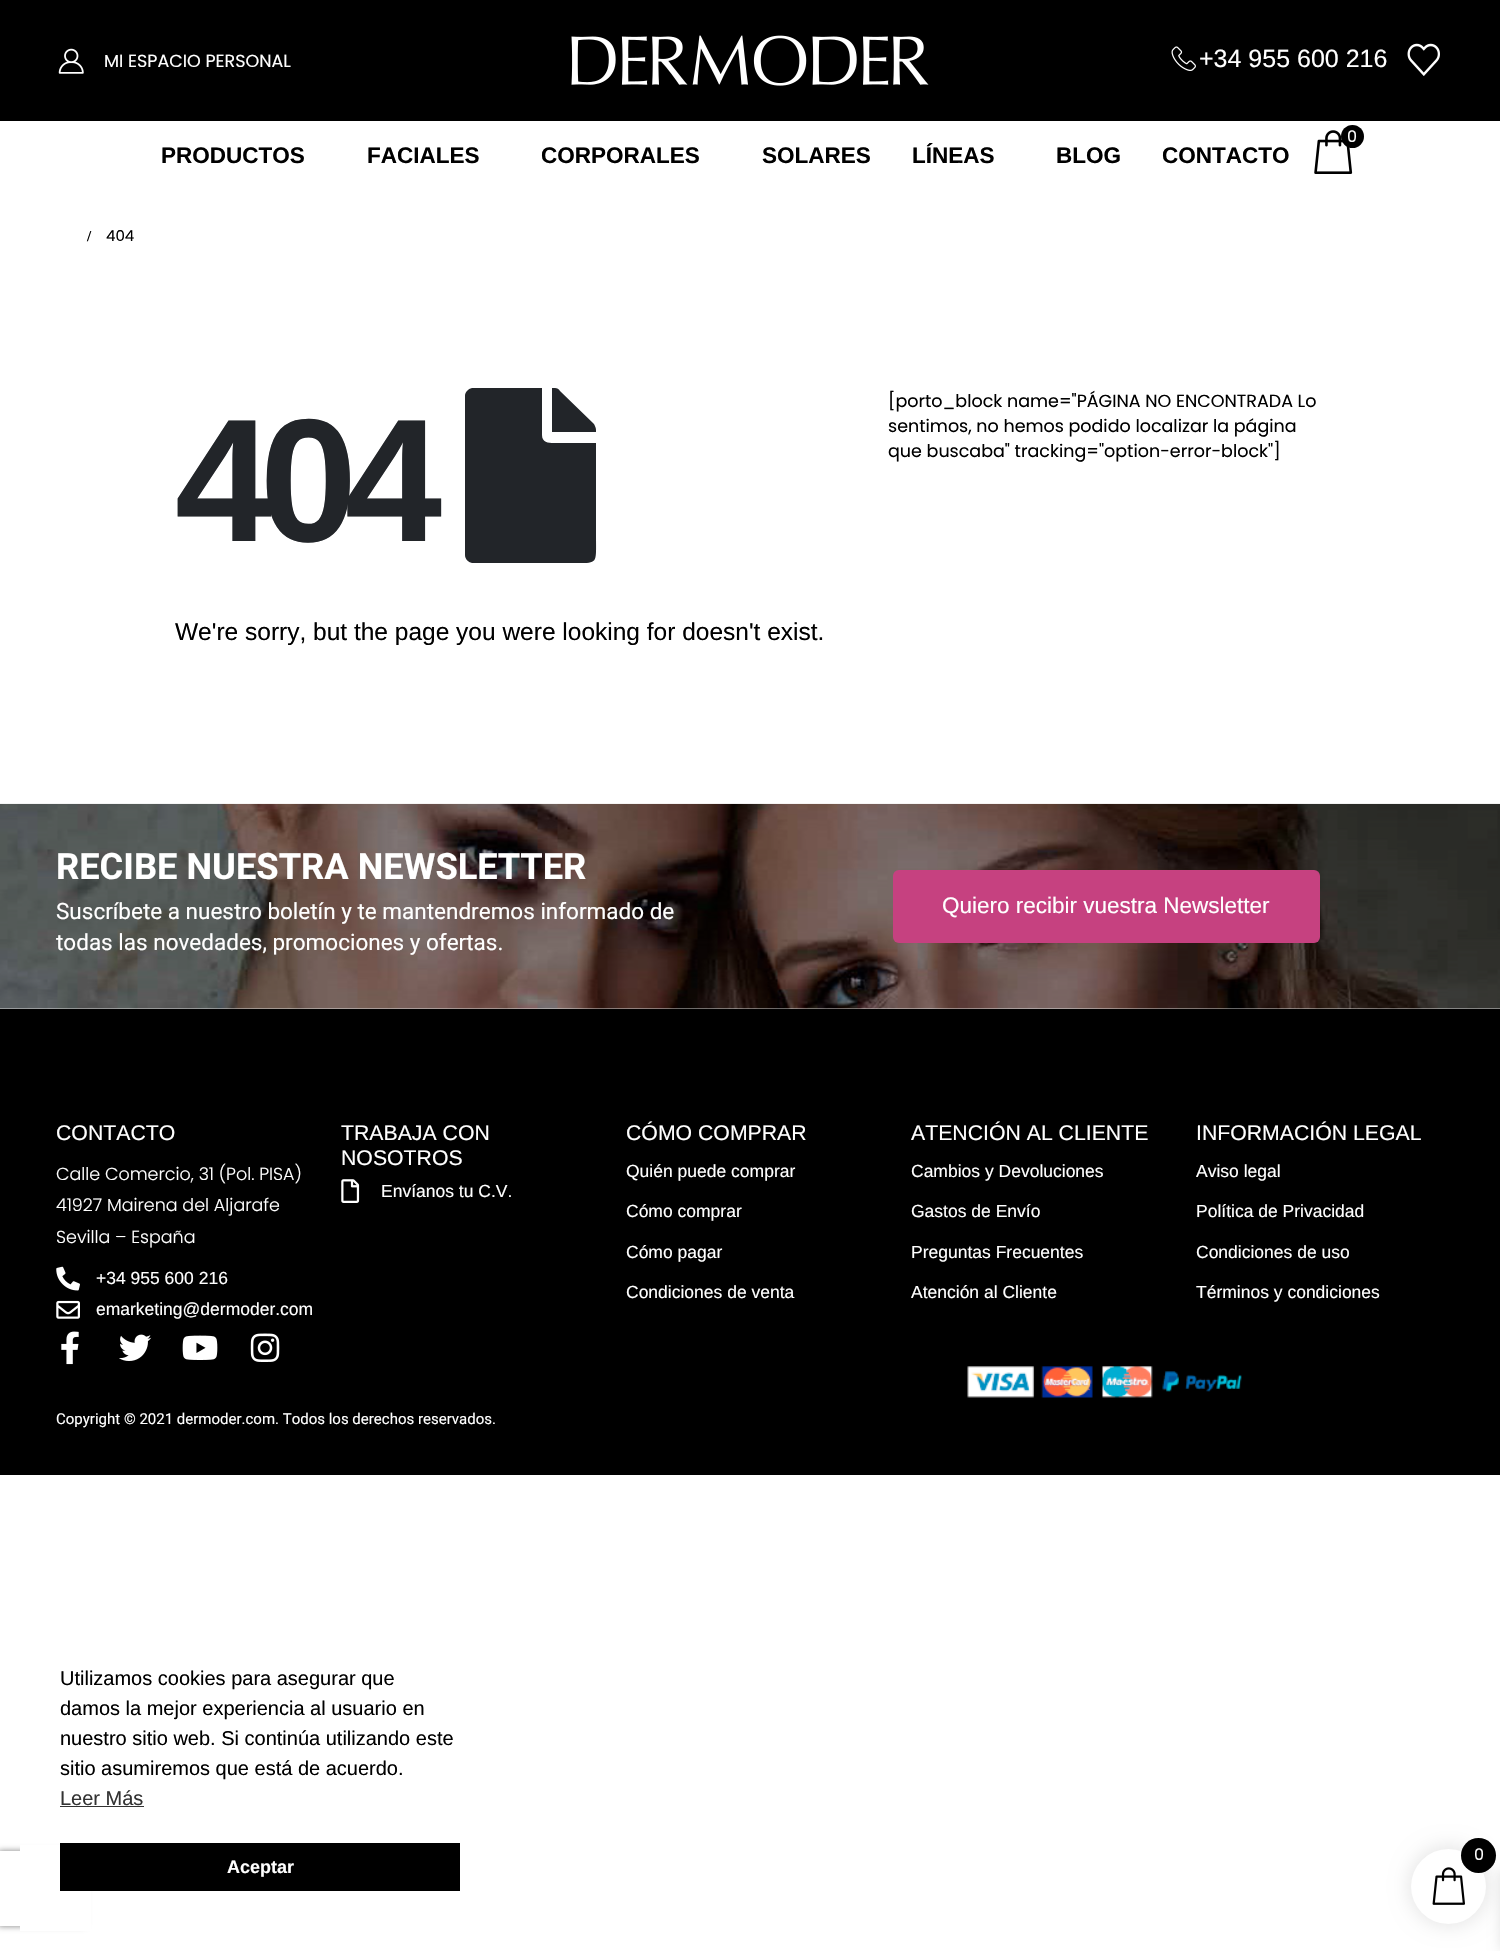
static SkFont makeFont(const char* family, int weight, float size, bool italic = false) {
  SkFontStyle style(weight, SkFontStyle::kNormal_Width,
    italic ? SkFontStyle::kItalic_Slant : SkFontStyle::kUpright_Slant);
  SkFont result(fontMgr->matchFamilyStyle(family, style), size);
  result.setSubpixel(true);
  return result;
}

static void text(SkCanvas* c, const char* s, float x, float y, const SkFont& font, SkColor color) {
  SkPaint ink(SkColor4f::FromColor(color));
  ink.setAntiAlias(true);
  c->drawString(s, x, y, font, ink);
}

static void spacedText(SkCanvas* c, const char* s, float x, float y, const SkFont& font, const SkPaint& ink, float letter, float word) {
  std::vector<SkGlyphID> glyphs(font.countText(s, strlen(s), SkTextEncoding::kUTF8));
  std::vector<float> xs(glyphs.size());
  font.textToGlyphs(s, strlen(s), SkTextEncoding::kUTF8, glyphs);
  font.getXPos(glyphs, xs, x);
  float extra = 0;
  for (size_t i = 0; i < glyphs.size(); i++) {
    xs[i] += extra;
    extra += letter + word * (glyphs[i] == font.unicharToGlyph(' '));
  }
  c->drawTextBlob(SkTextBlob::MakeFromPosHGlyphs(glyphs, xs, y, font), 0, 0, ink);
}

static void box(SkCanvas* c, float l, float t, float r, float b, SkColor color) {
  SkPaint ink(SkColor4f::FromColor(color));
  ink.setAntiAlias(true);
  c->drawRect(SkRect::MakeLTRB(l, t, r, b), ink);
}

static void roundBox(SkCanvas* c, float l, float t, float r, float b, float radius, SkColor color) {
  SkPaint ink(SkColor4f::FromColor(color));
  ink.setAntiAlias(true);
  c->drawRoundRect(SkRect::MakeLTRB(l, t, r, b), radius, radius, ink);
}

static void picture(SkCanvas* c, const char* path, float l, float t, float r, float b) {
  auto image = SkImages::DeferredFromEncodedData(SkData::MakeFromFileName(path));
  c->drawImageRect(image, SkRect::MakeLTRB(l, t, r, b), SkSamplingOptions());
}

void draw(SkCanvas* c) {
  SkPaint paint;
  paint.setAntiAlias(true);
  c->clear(0xffffffff);
  box(c, 0, 0, 1500, 121, 0xff000000);
  picture(c, "img_01.png", 58, 48, 84, 74);
  SkFont face1 = makeFont("Poppins", 400, 17.5f);
  text(c, "MI ESPACIO PERSONAL", 104, 67, face1, 0xffffffff);
  picture(c, "img_02.png", 571, 35, 929, 86);
  picture(c, "img_03.png", 1171, 46, 1196, 71);
  SkFont face2 = makeFont("Liberation Sans", 400, 25);
  text(c, "+34 955 600 216", 1199, 67, face2, 0xffffffff);
  picture(c, "img_04.png", 1407, 43, 1440, 76);
  picture(c, "img_05.png", 1314, 130, 1353, 174);
  paint.setColor(0xff000000);
  c->drawCircle(1352.5f, 136.5f, 11.5f, paint);
  SkFont face3 = makeFont("Poppins", 400, 16);
  text(c, "0", 1347, 142, face3, 0xffffffff);
  SkFont face4 = makeFont("Liberation Sans", 700, 22.5f);
  text(c, "PRODUCTOS", 161, 163, face4, 0xff000000);
  paint.setColor(0xffffffff);
  c->drawPath(SkPathBuilder().moveTo(251, 175).lineTo(226, 175).lineTo(239, 162.5f).close().detach(), paint);
  text(c, "FACIALES", 367, 163, face4, 0xff000000);
  text(c, "CORPORALES", 541, 163, face4, 0xff000000);
  c->drawPath(SkPathBuilder().moveTo(639, 175).lineTo(614, 175).lineTo(626, 162.5f).close().detach(), paint);
  text(c, "SOLARES", 762, 163, face4, 0xff000000);
  text(c, "LÍNEAS", 912, 163, face4, 0xff000000);
  c->drawPath(SkPathBuilder().moveTo(971, 175).lineTo(946, 175).lineTo(959, 162.5f).close().detach(), paint);
  text(c, "BLOG", 1056, 163, face4, 0xff000000);
  text(c, "CONTACTO", 1162, 163, face4, 0xff000000);
  SkFont face5 = makeFont("Liberation Serif", 700, 15);
  text(c, "/", 87, 241, face5, 0xff000000);
  SkFont face6 = makeFont("Poppins", 400, 15);
  text(c, "404", 106, 241, face6, 0xff000000);
  SkFont face7 = makeFont("Liberation Sans", 700, 175);
  paint.setColor(0xff222529);
  spacedText(c, "404", 175, 541, face7, paint, -12.5f, 0);
  c->drawPath(SkPathBuilder().moveTo(542, 435).cubicTo(542, 444, 551, 443, 558, 443).lineTo(596, 443).lineTo(596, 536).cubicTo(596, 566, 599, 563, 569, 563).lineTo(472, 563).cubicTo(468, 562, 465, 559, 465, 555).lineTo(465, 396).cubicTo(465, 392, 468, 389, 472, 388).lineTo(542, 388).close().moveTo(596, 430).lineTo(596, 432).lineTo(552, 432).lineTo(552, 388).lineTo(555, 388).cubicTo(557, 388, 559, 389, 560, 391).lineTo(594, 424).cubicTo(595, 426, 596, 428, 596, 430).close().detach(), paint);
  SkFont face8 = makeFont("Liberation Sans", 400, 24.5f);
  text(c, "We're sorry, but the page you were looking for doesn't exist.", 175, 640, face8, 0xff000000);
  text(c, "[porto_block name=\"PÁGINA NO ENCONTRADA Lo", 888, 407, face1, 0xff000000);
  text(c, "sentimos, no hemos podido localizar la página", 888, 432, face1, 0xff000000);
  text(c, "que buscaba\" tracking=\"option-error-block\"]", 888, 457, face1, 0xff000000);
  box(c, 0, 1008, 1500, 1009, 0xffededed);
  picture(c, "img_06.png", 0, 803, 1500, 1009);
  SkFont face9 = makeFont("Roboto", 700, 36.25f);
  text(c, "RECIBE NUESTRA NEWSLETTER", 56, 879, face9, 0xffffffff);
  SkFont face10 = makeFont("Roboto", 400, 22.5f);
  text(c, "Suscríbete a nuestro boletín y te mantendremos informado de", 56, 919, face10, 0xffffffff);
  text(c, "todas las novedades, promociones y ofertas.", 56, 950, face10, 0xffffffff);
  roundBox(c, 893, 870, 1320, 943, 6, 0xffc64180);
  SkFont face11 = makeFont("Liberation Sans", 400, 22.5f);
  text(c, "Quiero recibir vuestra Newsletter", 942, 913, face11, 0xffffffff);
  box(c, 0, 1009, 1500, 1475, 0xff000000);
  SkFont face12 = makeFont("Liberation Sans", 400, 21.25f);
  text(c, "CONTACTO", 56, 1140, face12, 0xffffffff);
  SkFont face13 = makeFont("Poppins", 300, 17.5f);
  text(c, "Calle Comercio, 31 (Pol. PISA)", 56, 1180, face13, 0xffffffff);
  text(c, "41927 Mairena del Aljarafe", 56, 1211, face13, 0xffffffff);
  text(c, "Sevilla – España", 56, 1243, face13, 0xffffffff);
  picture(c, "img_07.png", 56, 1266, 80, 1291);
  SkFont face14 = makeFont("Liberation Sans", 400, 17.5f);
  text(c, "+34 955 600 216", 96, 1284, face14, 0xffffffff);
  picture(c, "img_08.png", 56, 1300, 80, 1319);
  text(c, "emarketing@dermoder.com", 96, 1315, face14, 0xffffffff);
  picture(c, "img_09.png", 61, 1331, 79, 1365);
  picture(c, "img_10.png", 119, 1334, 152, 1361);
  picture(c, "img_11.png", 182, 1335, 218, 1360);
  picture(c, "img_12.png", 250, 1333, 280, 1362);
  text(c, "TRABAJA CON", 341, 1140, face12, 0xffffffff);
  text(c, "NOSOTROS", 341, 1165, face12, 0xffffffff);
  picture(c, "img_13.png", 341, 1179, 360, 1203);
  text(c, "Envíanos tu C.V.", 381, 1197, face14, 0xffffffff);
  text(c, "CÓMO COMPRAR", 626, 1140, face12, 0xffffffff);
  text(c, "Quién puede comprar", 626, 1177, face14, 0xffffffff);
  text(c, "Cómo comprar", 626, 1217, face14, 0xffffffff);
  text(c, "Cómo pagar", 626, 1258, face14, 0xffffffff);
  text(c, "Condiciones de venta", 626, 1298, face14, 0xffffffff);
  text(c, "ATENCIÓN AL CLIENTE", 911, 1140, face12, 0xffffffff);
  text(c, "Cambios y Devoluciones", 911, 1177, face14, 0xffffffff);
  text(c, "Gastos de Envío", 911, 1217, face14, 0xffffffff);
  text(c, "Preguntas Frecuentes", 911, 1258, face14, 0xffffffff);
  text(c, "Atención al Cliente", 911, 1298, face14, 0xffffffff);
  text(c, "INFORMACIÓN LEGAL", 1196, 1140, face12, 0xffffffff);
  text(c, "Aviso legal", 1196, 1177, face14, 0xffffffff);
  text(c, "Política de Privacidad", 1196, 1217, face14, 0xffffffff);
  text(c, "Condiciones de uso", 1196, 1258, face14, 0xffffffff);
  text(c, "Términos y condiciones", 1196, 1298, face14, 0xffffffff);
  picture(c, "img_14.png", 967, 1366, 1242, 1398);
  SkFont face15 = makeFont("Roboto", 400, 15);
  text(c, "Copyright © 2021 dermoder.com. Todos los derechos reservados.", 56, 1424, face15, 0xffffffff);
  paint.setColor(0x1a000000);
  paint.setMaskFilter(SkMaskFilter::MakeBlur(kNormal_SkBlurStyle, 9.5f));
  c->drawRoundRect(SkRect::MakeLTRB(1409, 1846, 1489, 1926), 40, 40, paint);
  paint.setMaskFilter(nullptr);
  paint.setMaskFilter(SkMaskFilter::MakeBlur(kNormal_SkBlurStyle, 6));
  c->drawRect(SkRect::MakeLTRB(1500, 1870, 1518, 1950), paint);
  paint.setMaskFilter(nullptr);
  paint.setColor(0xffffffff);
  c->drawCircle(1448.5f, 1886.5f, 37.5f, paint);
  picture(c, "img_15.png", 1432, 1867, 1465, 1905);
  paint.setColor(0xff000000);
  c->drawCircle(1478.5f, 1855.5f, 17.5f, paint);
  text(c, "0", 1474, 1860, face3, 0xffffffff);
  c->save();
  c->clipPath(SkPathBuilder(SkPathFillType::kEvenOdd).moveTo(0, 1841).lineTo(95, 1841).lineTo(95, 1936).lineTo(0, 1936).close().moveTo(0.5f, 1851).lineTo(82.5f, 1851).cubicTo(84, 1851, 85, 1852, 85, 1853.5f).lineTo(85, 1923.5f).cubicTo(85, 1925, 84, 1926, 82.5f, 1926).lineTo(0.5f, 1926).cubicTo(-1, 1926, -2, 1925, -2, 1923.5f).lineTo(-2, 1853.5f).cubicTo(-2, 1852, -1, 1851, 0.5f, 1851).close().detach(), true);
  paint.setColor(0xff808080);
  paint.setMaskFilter(SkMaskFilter::MakeBlur(kNormal_SkBlurStyle, 3));
  c->drawRoundRect(SkRect::MakeLTRB(-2, 1851, 85, 1926), 2.5f, 2.5f, paint);
  paint.setMaskFilter(nullptr);
  c->restore();
  box(c, 20, 1845, 91, 1931, 0xffffffff);
  SkFont face16 = makeFont("Liberation Sans", 400, 20);
  text(c, "Utilizamos cookies para asegurar que", 60, 1685, face16, 0xff000000);
  text(c, "damos la mejor experiencia al usuario en", 60, 1715, face16, 0xff000000);
  text(c, "nuestro sitio web. Si continúa utilizando este", 60, 1745, face16, 0xff000000);
  text(c, "sitio asumiremos que está de acuerdo.", 60, 1775, face16, 0xff000000);
  text(c, "Leer Más", 60, 1805, face16, 0xff333333);
  box(c, 60, 1806, 144, 1807, 0xff333333);
  box(c, 60, 1843, 460, 1891, 0xff000000);
  SkFont face17 = makeFont("Liberation Sans", 700, 18);
  text(c, "Aceptar", 227, 1873, face17, 0xffffffff);
}
